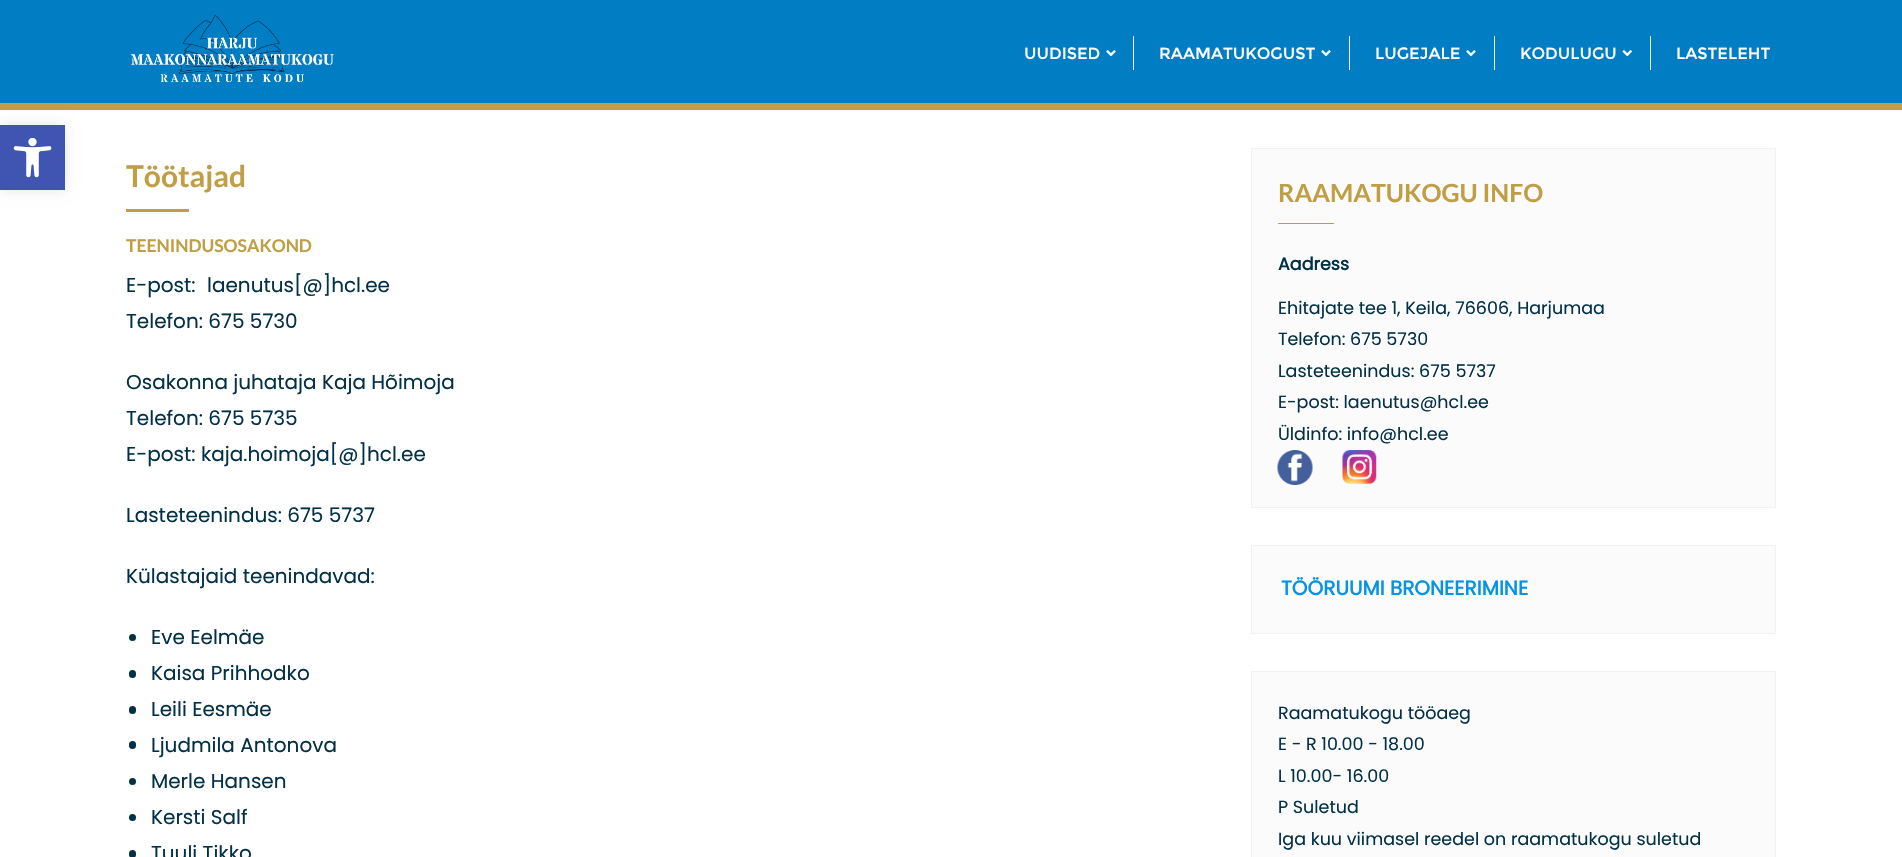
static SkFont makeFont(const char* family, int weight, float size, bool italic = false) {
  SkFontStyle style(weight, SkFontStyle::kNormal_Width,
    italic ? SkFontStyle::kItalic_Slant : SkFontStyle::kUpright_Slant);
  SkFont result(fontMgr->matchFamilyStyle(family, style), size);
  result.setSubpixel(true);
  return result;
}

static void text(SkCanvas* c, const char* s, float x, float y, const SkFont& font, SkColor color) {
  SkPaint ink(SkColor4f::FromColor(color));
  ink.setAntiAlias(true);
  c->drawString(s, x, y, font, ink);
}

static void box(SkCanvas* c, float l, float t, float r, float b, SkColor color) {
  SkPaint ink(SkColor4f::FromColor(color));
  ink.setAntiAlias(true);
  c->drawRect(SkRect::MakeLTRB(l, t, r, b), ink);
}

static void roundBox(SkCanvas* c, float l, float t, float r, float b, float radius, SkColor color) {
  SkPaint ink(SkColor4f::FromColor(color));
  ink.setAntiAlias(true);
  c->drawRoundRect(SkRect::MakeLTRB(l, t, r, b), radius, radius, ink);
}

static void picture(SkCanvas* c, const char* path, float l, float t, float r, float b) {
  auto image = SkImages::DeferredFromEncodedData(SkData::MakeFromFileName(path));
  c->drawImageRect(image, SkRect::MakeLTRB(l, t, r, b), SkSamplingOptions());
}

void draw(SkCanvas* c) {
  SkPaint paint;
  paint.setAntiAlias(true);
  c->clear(0xffffffff);
  box(c, 0, 103, 1902, 110, 0xffc09e45);
  box(c, 0, 0, 1902, 103, 0xff007dc3);
  picture(c, "img_01.png", 131, 14, 334, 83);
  SkFont face1 = makeFont("Montserrat", 400, 16.25f);
  text(c, "UUDISED", 1024, 59, face1, 0xffffffff);
  picture(c, "img_02.png", 1106, 50, 1116, 57);
  box(c, 1133, 36, 1134, 70, 0xfff1f1f1);
  text(c, "RAAMATUKOGUST", 1159, 59, face1, 0xffffffff);
  picture(c, "img_02.png", 1321, 50, 1331, 57);
  box(c, 1349, 36, 1350, 70, 0xfff1f1f1);
  text(c, "LUGEJALE", 1375, 59, face1, 0xffffffff);
  picture(c, "img_02.png", 1466, 50, 1476, 57);
  box(c, 1494, 36, 1495, 70, 0xfff1f1f1);
  text(c, "KODULUGU", 1520, 59, face1, 0xffffffff);
  picture(c, "img_03.png", 1622, 50, 1632, 57);
  box(c, 1650, 36, 1651, 70, 0xfff1f1f1);
  text(c, "LASTELEHT", 1676, 59, face1, 0xffffffff);
  paint.setColor(0x1a000000);
  paint.setMaskFilter(SkMaskFilter::MakeBlur(kNormal_SkBlurStyle, 6));
  c->drawRect(SkRect::MakeLTRB(0, 125, 65, 190), paint);
  paint.setMaskFilter(nullptr);
  box(c, 0, 125, 65, 190, 0xff4054b2);
  picture(c, "img_04.png", 13, 138, 52, 178);
  SkFont face2 = makeFont("Lato", 700, 30);
  text(c, "Töötajad", 126, 187, face2, 0xffc09e45);
  box(c, 126, 209, 189, 212, 0xffc09e45);
  SkFont face3 = makeFont("Lato", 700, 17.5f);
  text(c, "TEENINDUSOSAKOND", 126, 252, face3, 0xffc09e45);
  SkFont face4 = makeFont("Poppins", 400, 20);
  text(c, "E-post:", 126, 292, face4, 0xff023047);
  text(c, "laenutus[@]hcl.ee", 207, 292, face4, 0xff023047);
  text(c, "Telefon: 675 5730", 126, 328, face4, 0xff023047);
  text(c, "Osakonna juhataja Kaja Hõimoja", 126, 389, face4, 0xff023047);
  text(c, "Telefon: 675 5735", 126, 425, face4, 0xff023047);
  text(c, "E-post: kaja.hoimoja[@]hcl.ee", 126, 461, face4, 0xff023047);
  text(c, "Lasteteenindus: 675 5737", 126, 522, face4, 0xff023047);
  text(c, "Külastajaid teenindavad:", 126, 583, face4, 0xff023047);
  paint.setColor(0xff023047);
  c->drawCircle(132.5f, 637.5f, 3.5f, paint);
  text(c, "Eve Eelmäe", 151, 644, face4, 0xff023047);
  roundBox(c, 129, 670, 136, 678, 3.5f, 0xff023047);
  text(c, "Kaisa Prihhodko", 151, 680, face4, 0xff023047);
  roundBox(c, 129, 706, 136, 714, 3.5f, 0xff023047);
  text(c, "Leili Eesmäe", 151, 716, face4, 0xff023047);
  roundBox(c, 129, 741, 136, 749, 3.5f, 0xff023047);
  text(c, "Ljudmila Antonova", 151, 752, face4, 0xff023047);
  c->drawCircle(132.5f, 781.5f, 3.5f, paint);
  text(c, "Merle Hansen", 151, 788, face4, 0xff023047);
  c->drawCircle(132.5f, 817.5f, 3.5f, paint);
  text(c, "Kersti Salf", 151, 824, face4, 0xff023047);
  roundBox(c, 129, 850, 136, 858, 3.5f, 0xff023047);
  text(c, "Tuuli Tikko", 151, 860, face4, 0xff023047);
  paint.setColor(0xfffbfbfb);
  c->drawRect(SkRect::MakeLTRB(1251.5f, 148.5f, 1775.5f, 507.5f), paint);
  paint.setStyle(SkPaint::kStroke_Style);
  paint.setStrokeWidth(1);
  paint.setColor(0xfff1f1f1);
  c->drawRect(SkRect::MakeLTRB(1251.5f, 148.5f, 1775.5f, 507.5f), paint);
  SkFont face5 = makeFont("Lato", 700, 25);
  text(c, "RAAMATUKOGU INFO", 1278, 202, face5, 0xffc09e45);
  box(c, 1278, 223, 1334, 224, 0xffc09e45);
  SkFont face6 = makeFont("Poppins", 700, 17.5f);
  text(c, "Aadress", 1278, 270, face6, 0xff023047);
  SkFont face7 = makeFont("Poppins", 400, 17.5f);
  text(c, "Ehitajate tee 1, Keila, 76606, Harjumaa", 1278, 314, face7, 0xff023047);
  text(c, "Telefon: 675 5730", 1278, 345, face7, 0xff023047);
  text(c, "Lasteteenindus: 675 5737", 1278, 377, face7, 0xff023047);
  text(c, "E-post: laenutus@hcl.ee", 1278, 408, face7, 0xff023047);
  text(c, "Üldinfo: info@hcl.ee", 1278, 440, face7, 0xff023047);
  picture(c, "img_05.png", 1277, 450, 1313, 485);
  picture(c, "img_06.png", 1342, 450, 1377, 484);
  paint.setStyle(SkPaint::kFill_Style);
  paint.setColor(0xfffbfbfb);
  c->drawRect(SkRect::MakeLTRB(1251.5f, 545.5f, 1775.5f, 633.5f), paint);
  paint.setStyle(SkPaint::kStroke_Style);
  paint.setColor(0xfff1f1f1);
  c->drawRect(SkRect::MakeLTRB(1251.5f, 545.5f, 1775.5f, 633.5f), paint);
  SkFont face8 = makeFont("Poppins", 700, 20);
  text(c, "TÖÖRUUMI BRONEERIMINE", 1281, 595, face8, 0xff0693e3);
  box(c, 1281, 596, 1529, 597, 0xffffffff);
  paint.setStyle(SkPaint::kFill_Style);
  paint.setColor(0xfffbfbfb);
  c->drawRect(SkRect::MakeLTRB(1251.5f, 671.5f, 1775.5f, 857.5f), paint);
  paint.setStyle(SkPaint::kStroke_Style);
  paint.setColor(0xfff1f1f1);
  c->drawRect(SkRect::MakeLTRB(1251.5f, 671.5f, 1775.5f, 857.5f), paint);
  text(c, "Raamatukogu tööaeg", 1278, 719, face7, 0xff023047);
  text(c, "E - R 10.00 - 18.00", 1278, 750, face7, 0xff023047);
  text(c, "L 10.00- 16.00", 1278, 782, face7, 0xff023047);
  text(c, "P Suletud", 1278, 813, face7, 0xff023047);
  text(c, "Iga kuu viimasel reedel on raamatukogu suletud", 1278, 845, face7, 0xff023047);
}
